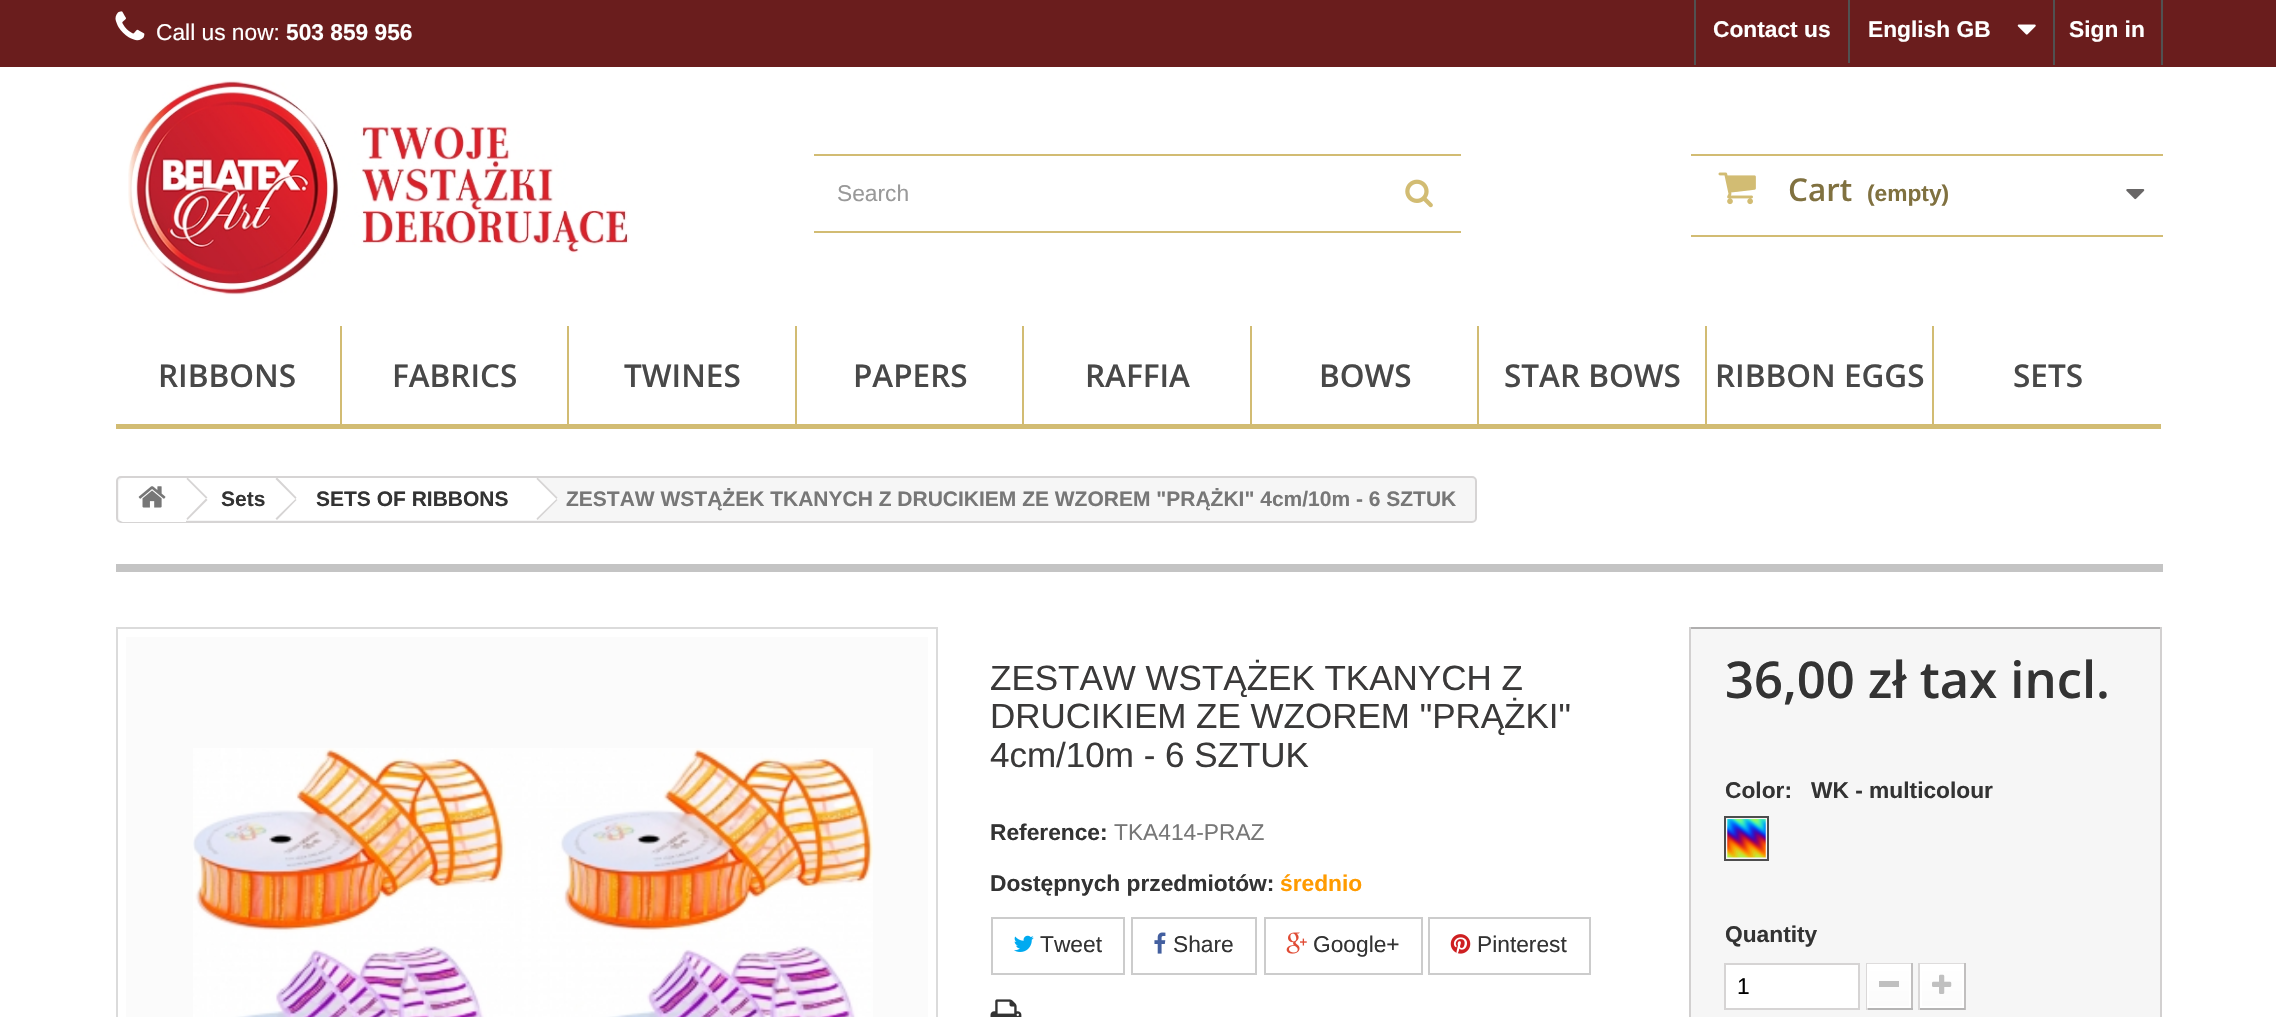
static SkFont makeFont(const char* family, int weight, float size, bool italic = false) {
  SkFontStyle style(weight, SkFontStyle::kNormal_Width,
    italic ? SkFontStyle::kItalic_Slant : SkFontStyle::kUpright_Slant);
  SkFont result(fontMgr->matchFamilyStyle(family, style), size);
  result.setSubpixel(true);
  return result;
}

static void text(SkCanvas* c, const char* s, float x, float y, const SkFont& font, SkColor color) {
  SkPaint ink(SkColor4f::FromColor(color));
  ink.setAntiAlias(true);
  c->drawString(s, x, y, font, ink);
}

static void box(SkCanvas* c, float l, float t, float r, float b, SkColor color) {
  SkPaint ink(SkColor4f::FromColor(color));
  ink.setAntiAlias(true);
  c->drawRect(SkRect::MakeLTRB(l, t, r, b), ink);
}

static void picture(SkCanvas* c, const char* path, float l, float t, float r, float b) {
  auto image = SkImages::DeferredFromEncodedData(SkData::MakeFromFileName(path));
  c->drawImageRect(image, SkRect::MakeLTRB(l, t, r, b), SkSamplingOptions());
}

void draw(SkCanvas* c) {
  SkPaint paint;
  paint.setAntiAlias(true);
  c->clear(0xffffffff);
  box(c, 0, 0, 2276, 67, 0xff6a1d1d);
  picture(c, "img_01.png", 115, 11, 145, 41);
  SkFont face1 = makeFont("Liberation Sans", 400, 22.75f);
  text(c, "Call us now:", 156, 40, face1, 0xffffffff);
  SkFont face2 = makeFont("Liberation Sans", 700, 22.75f);
  text(c, "503 859 956", 286, 40, face2, 0xffffffff);
  box(c, 1694, 0, 1696, 65, 0xff515151);
  text(c, "Contact us", 1713, 37, face2, 0xffffffff);
  box(c, 1848, 0, 1850, 63, 0xff515151);
  text(c, "English GB", 1868, 37, face2, 0xffffffff);
  picture(c, "img_02.png", 2017, 24, 2036, 35);
  box(c, 2161, 0, 2163, 65, 0xff515151);
  box(c, 2053, 0, 2055, 65, 0xff515151);
  text(c, "Sign in", 2069, 37, face2, 0xffffffff);
  picture(c, "img_03.png", 128, 80, 629, 295);
  box(c, 814, 154, 1461, 156, 0xffd2bc73);
  box(c, 814, 231, 1461, 233, 0xffd2bc73);
  text(c, "Search", 837, 201, face1, 0xff999999);
  picture(c, "img_04.png", 1405, 179, 1433, 208);
  box(c, 1691, 154, 2163, 156, 0xffd2bc73);
  box(c, 1691, 235, 2163, 237, 0xffd2bc73);
  picture(c, "img_05.png", 1718, 172, 1756, 205);
  SkFont face3 = makeFont("Open Sans", 600, 31.5f);
  text(c, "Cart", 1788, 201, face3, 0xff807140);
  text(c, "(empty)", 1867, 201, face2, 0xff807140);
  picture(c, "img_06.png", 2126, 189, 2145, 200);
  box(c, 340, 326, 342, 429, 0xffd2bc73);
  box(c, 116, 424, 340, 429, 0xffd2bc73);
  text(c, "RIBBONS", 158, 387, face3, 0xff484848);
  box(c, 567, 326, 569, 429, 0xffd2bc73);
  box(c, 341, 424, 567, 429, 0xffd2bc73);
  text(c, "FABRICS", 392, 387, face3, 0xff484848);
  box(c, 795, 326, 797, 429, 0xffd2bc73);
  box(c, 569, 424, 795, 429, 0xffd2bc73);
  text(c, "TWINES", 624, 387, face3, 0xff484848);
  box(c, 1022, 326, 1024, 429, 0xffd2bc73);
  box(c, 796, 424, 1022, 429, 0xffd2bc73);
  text(c, "PAPERS", 853, 387, face3, 0xff484848);
  box(c, 1250, 326, 1252, 429, 0xffd2bc73);
  box(c, 1024, 424, 1250, 429, 0xffd2bc73);
  text(c, "RAFFIA", 1085, 387, face3, 0xff484848);
  box(c, 1477, 326, 1479, 429, 0xffd2bc73);
  box(c, 1251, 424, 1477, 429, 0xffd2bc73);
  text(c, "BOWS", 1319, 387, face3, 0xff484848);
  box(c, 1705, 326, 1707, 429, 0xffd2bc73);
  box(c, 1479, 424, 1705, 429, 0xffd2bc73);
  text(c, "STAR BOWS", 1504, 387, face3, 0xff484848);
  box(c, 1932, 326, 1934, 429, 0xffd2bc73);
  box(c, 1706, 424, 1932, 429, 0xffd2bc73);
  text(c, "RIBBON EGGS", 1715, 387, face3, 0xff484848);
  box(c, 1934, 424, 2161, 429, 0xffd2bc73);
  text(c, "SETS", 2013, 387, face3, 0xff484848);
  paint.setColor(0xfff6f6f6);
  c->drawRoundRect(SkRect::MakeLTRB(117, 477, 1476, 522), 4, 4, paint);
  paint.setStyle(SkPaint::kStroke_Style);
  paint.setStrokeWidth(2);
  paint.setColor(0xffd6d4d4);
  c->drawRoundRect(SkRect::MakeLTRB(117, 477, 1476, 522), 4, 4, paint);
  paint.setStyle(SkPaint::kFill_Style);
  paint.setColor(0xffffffff);
  c->drawPath(SkPathBuilder().moveTo(124, 478).lineTo(186, 478).lineTo(186, 522).lineTo(124, 522).cubicTo(121, 522, 119, 520, 119, 517).lineTo(119, 483).cubicTo(119, 480, 121, 478, 124, 478).close().detach(), paint);
  picture(c, "img_07.png", 138, 486, 166, 508);
  box(c, 186, 478, 278, 520, 0xffffffff);
  paint.setColor(0xffd6d4d4);
  c->drawPath(SkPathBuilder().moveTo(187.5f, 477.5f).lineTo(207.5f, 497.5f).lineTo(206, 498.5f).lineTo(186.5f, 479).close().detach(), paint);
  c->drawPath(SkPathBuilder().moveTo(206, 498.5f).lineTo(207.5f, 500).lineTo(187.5f, 520).lineTo(186.5f, 518.5f).close().detach(), paint);
  SkFont face4 = makeFont("Liberation Sans", 700, 21);
  text(c, "Sets", 221, 506, face4, 0xff333333);
  paint.setColor(0xffffffff);
  c->drawPath(SkPathBuilder().moveTo(296, 479).lineTo(313, 496).cubicTo(314, 498, 314, 500, 313, 501).lineTo(296, 519).cubicTo(294, 520, 292, 520, 291, 519).lineTo(273, 501).cubicTo(272, 500, 272, 498, 273, 496).lineTo(291, 479).cubicTo(292, 478, 294, 478, 296, 479).close().detach(), paint);
  box(c, 278, 478, 536, 520, 0xffffffff);
  paint.setColor(0xffd6d4d4);
  c->drawPath(SkPathBuilder().moveTo(277, 477.5f).lineTo(296.5f, 497.5f).lineTo(295.5f, 499).lineTo(275.5f, 479).close().moveTo(295.5f, 499).lineTo(296.5f, 500).lineTo(277, 520).lineTo(275.5f, 518.5f).close().detach(), paint);
  text(c, "SETS OF RIBBONS", 316, 506, face4, 0xff333333);
  paint.setColor(0xffffffff);
  c->drawPath(SkPathBuilder().moveTo(539, 479).lineTo(556, 496).cubicTo(558, 498, 558, 500, 556, 501).lineTo(539, 519).cubicTo(538, 520, 535, 520, 534, 519).lineTo(517, 501).cubicTo(515, 500, 515, 498, 517, 496).lineTo(534, 479).cubicTo(535, 478, 538, 478, 539, 479).close().detach(), paint);
  paint.setColor(0xffd6d4d4);
  c->drawPath(SkPathBuilder().moveTo(537.5f, 477.5f).lineTo(557.5f, 497.5f).lineTo(556.5f, 499).lineTo(536.5f, 479).close().moveTo(556.5f, 499).lineTo(557.5f, 500).lineTo(537.5f, 520).lineTo(536.5f, 518.5f).close().detach(), paint);
  text(c, "ZESTAW WSTĄŻEK TKANYCH Z DRUCIKIEM ZE WZOREM \"PRĄŻKI\" 4cm/10m - 6 SZTUK", 566, 506, face4, 0xff777777);
  box(c, 116, 564, 2163, 572, 0xffc4c4c4);
  paint.setStyle(SkPaint::kStroke_Style);
  paint.setColor(0xffdbdbdb);
  c->drawRect(SkRect::MakeLTRB(117, 628, 937, 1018), paint);
  box(c, 126, 637, 928, 1017, 0xfffbfbfb);
  picture(c, "img_08.png", 193, 748, 873, 1017);
  SkFont face5 = makeFont("Liberation Sans", 400, 35);
  text(c, "ZESTAW WSTĄŻEK TKANYCH Z", 990, 690, face5, 0xff3a3939);
  text(c, "DRUCIKIEM ZE WZOREM \"PRĄŻKI\"", 990, 728, face5, 0xff3a3939);
  text(c, "4cm/10m - 6 SZTUK", 990, 767, face5, 0xff3a3939);
  text(c, "Reference:", 990, 840, face2, 0xff333333);
  text(c, "TKA414-PRAZ", 1114, 840, face1, 0xff777777);
  text(c, "Dostępnych przedmiotów:", 990, 891, face2, 0xff333333);
  text(c, "średnio", 1280, 891, face2, 0xffff9b00);
  paint.setColor(0xffcccccc);
  c->drawRect(SkRect::MakeLTRB(992, 918, 1124, 974), paint);
  picture(c, "img_09.png", 1014, 935, 1034, 952);
  text(c, "Tweet", 1040, 952, face1, 0xff333333);
  c->drawRect(SkRect::MakeLTRB(1132, 918, 1256, 974), paint);
  picture(c, "img_10.png", 1154, 932, 1166, 954);
  text(c, "Share", 1173, 952, face1, 0xff333333);
  c->drawRect(SkRect::MakeLTRB(1265, 918, 1422, 974), paint);
  picture(c, "img_11.png", 1286, 932, 1307, 954);
  text(c, "Google+", 1313, 952, face1, 0xff333333);
  c->drawRect(SkRect::MakeLTRB(1429, 918, 1590, 974), paint);
  picture(c, "img_12.png", 1450, 934, 1471, 954);
  text(c, "Pinterest", 1477, 952, face1, 0xff333333);
  picture(c, "img_13.png", 990, 999, 1022, 1017);
  box(c, 1691, 629, 2160, 1017, 0xfff6f6f6);
  box(c, 1689, 627, 2161, 629, 0xffb0afaf);
  box(c, 2160, 627, 2162, 1017, 0xffd2d0d0);
  box(c, 1689, 627, 1691, 1017, 0xffd2d0d0);
  SkFont face6 = makeFont("Open Sans", 600, 50.75f);
  text(c, "36,00 zł tax incl.", 1725, 698, face6, 0xff333333);
  text(c, "Color:", 1725, 798, face2, 0xff333333);
  text(c, "WK - multicolour", 1811, 798, face2, 0xff333333);
  paint.setColor(0xff4d4d4d);
  c->drawRect(SkRect::MakeLTRB(1725, 817, 1768, 860), paint);
  picture(c, "img_14.png", 1727, 819, 1766, 858);
  text(c, "Quantity", 1725, 942, face2, 0xff333333);
  paint.setStyle(SkPaint::kFill_Style);
  paint.setColor(0xffffffff);
  c->drawRect(SkRect::MakeLTRB(1725, 964, 1859, 1009), paint);
  paint.setStyle(SkPaint::kStroke_Style);
  paint.setColor(0xffd6d4d4);
  c->drawRect(SkRect::MakeLTRB(1725, 964, 1859, 1009), paint);
  text(c, "1", 1737, 994, face1, 0xff000000);
  box(c, 1866, 963, 1913, 964, 0xffdedcdc);
  box(c, 1911, 963, 1913, 1010, 0xffc1bfbf);
  box(c, 1866, 1008, 1913, 1010, 0xffb5b4b4);
  box(c, 1866, 963, 1868, 1010, 0xffdad8d8);
  paint.setStyle(SkPaint::kFill_Style);
  {
    const SkColor colors[] = {0xffffffff, 0xfffbfbfb};
    const float stops[] = {0, 1};
    const SkPoint ends[] = {{1889, 966}, {1889, 1006}};
    paint.setShader(SkGradientShader::MakeLinear(ends, colors, stops, 2, SkTileMode::kClamp));
    paint.setAlpha(255);
  }
  c->drawRect(SkRect::MakeLTRB(1869, 966, 1909, 1006), paint);
  paint.setStyle(SkPaint::kStroke_Style);
  paint.setShader(nullptr);
  paint.setColor(0xffffffff);
  c->drawRect(SkRect::MakeLTRB(1868, 965, 1910, 1007), paint);
  box(c, 1879, 981, 1899, 987, 0xffc0c0c0);
  box(c, 1918, 963, 1965, 964, 0xffdedcdc);
  box(c, 1964, 963, 1966, 1010, 0xffc1bfbf);
  box(c, 1918, 1008, 1965, 1010, 0xffb5b4b4);
  box(c, 1918, 963, 1920, 1010, 0xffdad8d8);
  paint.setStyle(SkPaint::kFill_Style);
  {
    const SkColor colors[] = {0xffffffff, 0xfffbfbfb};
    const float stops[] = {0, 1};
    const SkPoint ends[] = {{1942, 966}, {1942, 1006}};
    paint.setShader(SkGradientShader::MakeLinear(ends, colors, stops, 2, SkTileMode::kClamp));
    paint.setAlpha(255);
  }
  c->drawRect(SkRect::MakeLTRB(1922, 966, 1962, 1006), paint);
  paint.setStyle(SkPaint::kStroke_Style);
  paint.setShader(nullptr);
  paint.setColor(0xffffffff);
  c->drawRect(SkRect::MakeLTRB(1921, 965, 1963, 1007), paint);
  picture(c, "img_15.png", 1932, 974, 1952, 994);
}
